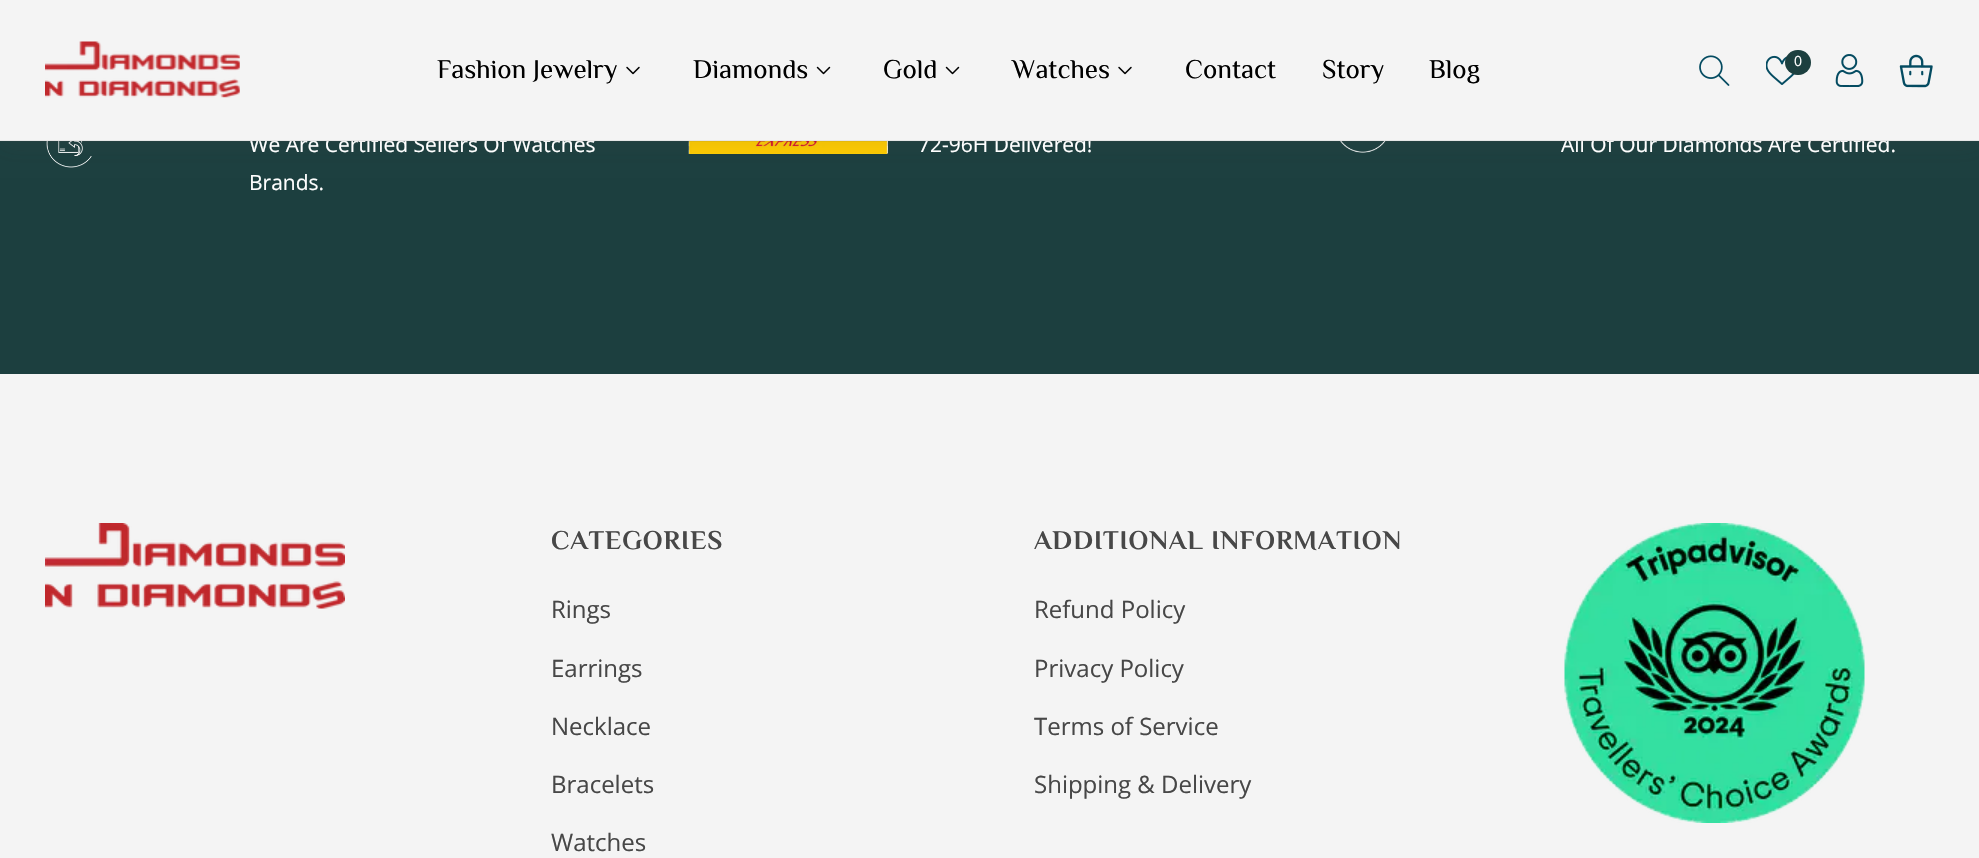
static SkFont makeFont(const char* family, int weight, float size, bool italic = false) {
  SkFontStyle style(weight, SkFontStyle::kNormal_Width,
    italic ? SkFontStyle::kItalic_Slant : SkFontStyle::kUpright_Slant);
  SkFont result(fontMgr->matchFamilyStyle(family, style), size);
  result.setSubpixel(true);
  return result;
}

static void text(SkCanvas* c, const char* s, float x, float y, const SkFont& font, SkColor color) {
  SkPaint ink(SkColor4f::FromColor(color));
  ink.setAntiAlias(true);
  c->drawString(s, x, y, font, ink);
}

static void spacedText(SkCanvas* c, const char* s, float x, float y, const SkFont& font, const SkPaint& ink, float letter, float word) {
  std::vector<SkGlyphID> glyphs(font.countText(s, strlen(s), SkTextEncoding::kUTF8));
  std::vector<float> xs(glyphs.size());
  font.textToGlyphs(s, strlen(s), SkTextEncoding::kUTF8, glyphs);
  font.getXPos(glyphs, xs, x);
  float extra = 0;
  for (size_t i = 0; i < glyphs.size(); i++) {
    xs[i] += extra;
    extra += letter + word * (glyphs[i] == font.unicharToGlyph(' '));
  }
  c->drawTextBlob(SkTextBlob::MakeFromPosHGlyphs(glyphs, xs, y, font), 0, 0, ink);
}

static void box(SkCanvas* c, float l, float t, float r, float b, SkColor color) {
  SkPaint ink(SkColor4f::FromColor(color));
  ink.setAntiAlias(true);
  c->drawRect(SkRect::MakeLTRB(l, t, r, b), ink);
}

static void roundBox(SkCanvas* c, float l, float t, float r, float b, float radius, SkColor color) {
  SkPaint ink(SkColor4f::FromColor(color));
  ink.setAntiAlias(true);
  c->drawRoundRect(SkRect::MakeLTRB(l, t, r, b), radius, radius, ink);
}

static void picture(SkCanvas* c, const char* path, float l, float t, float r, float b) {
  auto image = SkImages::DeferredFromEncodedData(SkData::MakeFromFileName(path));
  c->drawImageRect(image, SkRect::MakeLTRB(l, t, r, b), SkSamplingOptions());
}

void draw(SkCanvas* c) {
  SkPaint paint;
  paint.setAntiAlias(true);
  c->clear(0xfff4f4f4);
  box(c, 0, 141, 1979, 374, 0xff1c3f3f);
  picture(c, "img_08.png", 46, 141, 92, 168);
  picture(c, "img_09.png", 688, 141, 888, 154);
  picture(c, "img_10.png", 1340, 141, 1386, 153);
  paint.setColor(0x1c544b4b);
  paint.setMaskFilter(SkMaskFilter::MakeBlur(kNormal_SkBlurStyle, 10.5f));
  c->drawRect(SkRect::MakeLTRB(0, 6, 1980, 147), paint);
  paint.setMaskFilter(nullptr);
  SkFont face1 = makeFont("Open Sans", 400, 21);
  text(c, "We Are Certified Sellers Of Watches", 249, 152, face1, 0xffffffff);
  text(c, "72-96H Delivered!", 918, 152, face1, 0xffffffff);
  text(c, "All Of Our Diamonds Are Certified.", 1561, 152, face1, 0xffffffff);
  box(c, 0, 0, 1979, 141, 0xfff4f4f4);
  box(c, 0, 140, 1979, 142, 0x14474747);
  picture(c, "img_01.png", 45, 41, 240, 98);
  SkFont face2 = makeFont("Philosopher", 400, 27);
  text(c, "Fashion Jewelry", 437, 78, face2, 0xff000000);
  picture(c, "img_02.png", 626, 66, 640, 75);
  text(c, "Diamonds", 693, 78, face2, 0xff000000);
  picture(c, "img_03.png", 816, 66, 831, 75);
  text(c, "Gold", 883, 78, face2, 0xff000000);
  picture(c, "img_03.png", 945, 66, 960, 75);
  text(c, "Watches", 1012, 78, face2, 0xff000000);
  picture(c, "img_02.png", 1118, 66, 1132, 75);
  text(c, "Contact", 1185, 78, face2, 0xff000000);
  text(c, "Story", 1322, 78, face2, 0xff000000);
  text(c, "Blog", 1429, 78, face2, 0xff000000);
  picture(c, "img_04.png", 1699, 55, 1730, 86);
  picture(c, "img_05.png", 1766, 55, 1795, 85);
  roundBox(c, 1785, 50, 1811, 75, 12.5f, 0xff1c3f3f);
  SkFont face3 = makeFont("Open Sans", 400, 14);
  text(c, "0", 1794, 66, face3, 0xffffffff);
  picture(c, "img_06.png", 1835, 54, 1864, 87);
  picture(c, "img_07.png", 1899, 54, 1933, 88);
  text(c, "Brands.", 249, 190, face1, 0xffffffff);
  picture(c, "img_11.png", 45, 523, 345, 609);
  SkFont face4 = makeFont("Philosopher", 700, 27);
  paint.setColor(0xff474747);
  spacedText(c, "CATEGORIES", 551, 549, face4, paint, 0.9f, 0);
  SkFont face5 = makeFont("Open Sans", 400, 24);
  text(c, "Rings", 551, 618, face5, 0xff474747);
  text(c, "Earrings", 551, 677, face5, 0xff474747);
  text(c, "Necklace", 551, 735, face5, 0xff474747);
  text(c, "Bracelets", 551, 793, face5, 0xff474747);
  text(c, "Watches", 551, 851, face5, 0xff474747);
  spacedText(c, "ADDITIONAL INFORMATION", 1034, 549, face4, paint, 0.9f, 0);
  text(c, "Refund Policy", 1034, 618, face5, 0xff474747);
  text(c, "Privacy Policy", 1034, 677, face5, 0xff474747);
  text(c, "Terms of Service", 1034, 735, face5, 0xff474747);
  text(c, "Shipping & Delivery", 1034, 793, face5, 0xff474747);
  picture(c, "img_12.png", 1564, 523, 1865, 823);
}
